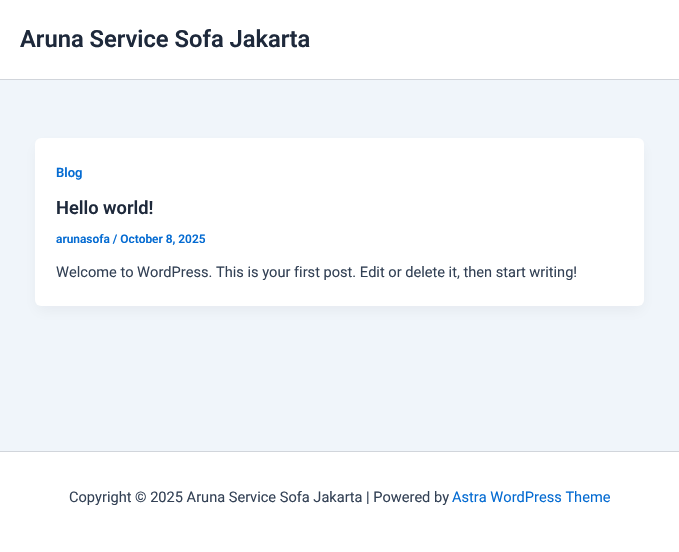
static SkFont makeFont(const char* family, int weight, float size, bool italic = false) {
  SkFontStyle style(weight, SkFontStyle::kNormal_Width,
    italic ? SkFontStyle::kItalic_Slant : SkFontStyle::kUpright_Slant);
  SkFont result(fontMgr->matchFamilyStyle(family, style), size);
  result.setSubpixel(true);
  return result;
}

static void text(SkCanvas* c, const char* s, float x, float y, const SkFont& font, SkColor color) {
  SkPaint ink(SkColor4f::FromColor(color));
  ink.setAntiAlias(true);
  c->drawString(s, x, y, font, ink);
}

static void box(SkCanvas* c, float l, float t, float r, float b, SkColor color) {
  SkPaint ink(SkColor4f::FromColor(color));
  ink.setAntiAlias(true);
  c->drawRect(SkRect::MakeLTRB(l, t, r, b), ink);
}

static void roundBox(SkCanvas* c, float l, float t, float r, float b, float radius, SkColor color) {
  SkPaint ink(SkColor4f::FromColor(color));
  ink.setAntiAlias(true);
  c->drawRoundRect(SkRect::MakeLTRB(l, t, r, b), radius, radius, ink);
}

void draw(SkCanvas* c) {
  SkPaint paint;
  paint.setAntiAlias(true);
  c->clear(0xfff0f5fa);
  box(c, 0, 0, 679, 79, 0xffffffff);
  box(c, 0, 79, 679, 80, 0xffd1d5db);
  SkFont face1 = makeFont("Roboto", 600, 23.75f);
  text(c, "Aruna Service Sofa Jakarta", 20, 47, face1, 0xff1e293b);
  paint.setColor(0x0d101828);
  paint.setMaskFilter(SkMaskFilter::MakeBlur(kNormal_SkBlurStyle, 7.5f));
  c->drawRoundRect(SkRect::MakeLTRB(37, 146, 642, 310), 4, 4, paint);
  paint.setMaskFilter(nullptr);
  roundBox(c, 35, 138, 644, 306, 6, 0xffffffff);
  SkFont face2 = makeFont("Roboto", 600, 13);
  text(c, "Blog", 56, 177, face2, 0xff046bd2);
  SkFont face3 = makeFont("Roboto", 600, 18.25f);
  text(c, "Hello world!", 56, 214, face3, 0xff1e293b);
  SkFont face4 = makeFont("Roboto", 600, 11.9f);
  text(c, "arunasofa / October 8, 2025", 56, 243, face4, 0xff046bd2);
  SkFont face5 = makeFont("Roboto", 400, 14.6f);
  text(c, "Welcome to WordPress. This is your first post. Edit or delete it, then start writing!", 56, 277, face5, 0xff334155);
  box(c, 0, 452, 679, 552, 0xffffffff);
  box(c, 0, 451, 679, 452, 0xffd1d5db);
  text(c, "Copyright © 2025 Aruna Service Sofa Jakarta | Powered by", 69, 502, face5, 0xff334155);
  text(c, "Astra WordPress Theme", 452, 502, face5, 0xff046bd2);
}
